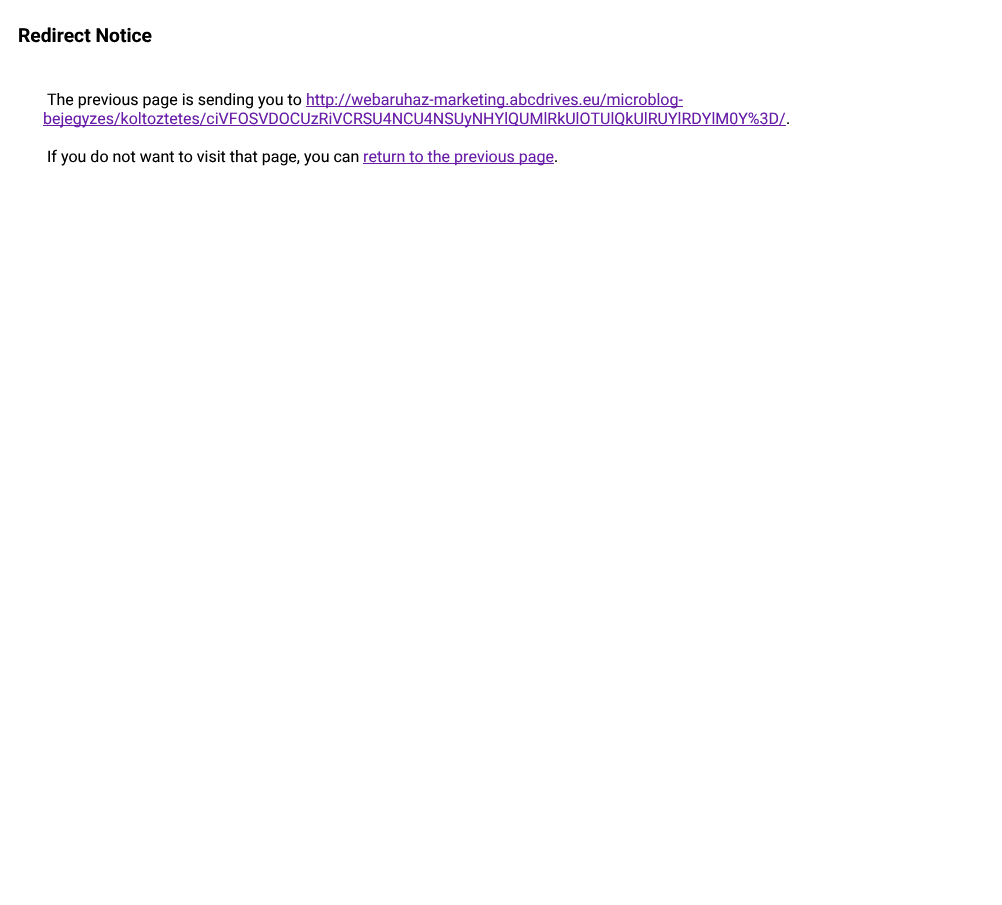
static SkFont makeFont(const char* family, int weight, float size, bool italic = false) {
  SkFontStyle style(weight, SkFontStyle::kNormal_Width,
    italic ? SkFontStyle::kItalic_Slant : SkFontStyle::kUpright_Slant);
  SkFont result(fontMgr->matchFamilyStyle(family, style), size);
  result.setSubpixel(true);
  return result;
}

static void text(SkCanvas* c, const char* s, float x, float y, const SkFont& font, SkColor color) {
  SkPaint ink(SkColor4f::FromColor(color));
  ink.setAntiAlias(true);
  c->drawString(s, x, y, font, ink);
}

static void box(SkCanvas* c, float l, float t, float r, float b, SkColor color) {
  SkPaint ink(SkColor4f::FromColor(color));
  ink.setAntiAlias(true);
  c->drawRect(SkRect::MakeLTRB(l, t, r, b), ink);
}

void draw(SkCanvas* c) {
  SkPaint paint;
  paint.setAntiAlias(true);
  c->clear(0xffffffff);
  SkFont face1 = makeFont("Roboto", 700, 19.25f);
  text(c, "Redirect Notice", 18, 42, face1, 0xff000000);
  SkFont face2 = makeFont("Roboto", 400, 16);
  text(c, "The previous page is sending you to", 47, 105, face2, 0xff000000);
  box(c, 306, 106, 683, 107, 0xff681da8);
  text(c, "http://webaruhaz-marketing.abcdrives.eu/microblog-", 306, 105, face2, 0xff681da8);
  box(c, 43, 125, 786, 126, 0xff681da8);
  text(c, "bejegyzes/koltoztetes/ciVFOSVDOCUzRiVCRSU4NCU4NSUyNHYlQUMlRkUlOTUlQkUlRUYlRDYlM0Y%3D/", 43, 124, face2, 0xff681da8);
  text(c, ".", 786, 124, face2, 0xff000000);
  text(c, "If you do not want to visit that page, you can", 47, 162, face2, 0xff000000);
  box(c, 363, 163, 554, 164, 0xff681da8);
  text(c, "return to the previous page", 363, 162, face2, 0xff681da8);
  text(c, ".", 554, 162, face2, 0xff000000);
}
